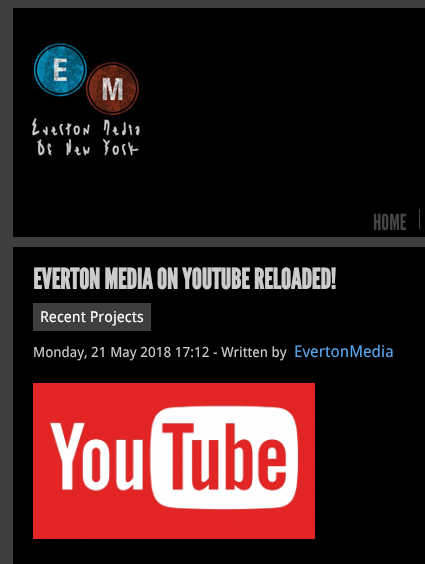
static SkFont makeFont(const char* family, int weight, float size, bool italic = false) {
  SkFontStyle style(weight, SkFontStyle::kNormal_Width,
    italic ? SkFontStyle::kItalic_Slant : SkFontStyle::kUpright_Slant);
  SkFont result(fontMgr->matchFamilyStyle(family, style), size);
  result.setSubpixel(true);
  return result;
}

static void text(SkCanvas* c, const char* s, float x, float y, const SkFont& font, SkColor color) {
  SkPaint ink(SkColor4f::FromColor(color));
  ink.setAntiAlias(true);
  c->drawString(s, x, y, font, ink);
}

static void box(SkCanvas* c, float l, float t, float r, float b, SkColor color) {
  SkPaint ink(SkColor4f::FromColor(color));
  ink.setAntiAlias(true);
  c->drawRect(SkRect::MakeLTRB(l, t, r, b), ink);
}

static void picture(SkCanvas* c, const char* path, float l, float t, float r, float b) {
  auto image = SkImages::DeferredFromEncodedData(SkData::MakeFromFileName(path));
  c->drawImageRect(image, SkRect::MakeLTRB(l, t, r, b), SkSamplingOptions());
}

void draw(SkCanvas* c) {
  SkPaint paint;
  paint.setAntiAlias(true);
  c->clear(0xff3f3d3d);
  box(c, 13, 8, 425, 237, 0xff000000);
  picture(c, "img_01.png", 31, 42, 143, 159);
  SkFont face1 = makeFont("League Gothic", 400, 22);
  text(c, "HOME", 373, 230, face1, 0xff444444);
  box(c, 419, 209, 420, 229, 0xff424446);
  box(c, 13, 247, 425, 564, 0xff000000);
  SkFont face2 = makeFont("League Gothic", 700, 28);
  text(c, "EVERTON MEDIA ON YOUTUBE RELOADED!", 33, 289, face2, 0xffcccccc);
  box(c, 33, 303, 151, 331, 0xff3f3d3d);
  SkFont face3 = makeFont("Droid Sans", 400, 15);
  text(c, "Recent Projects", 40, 322, face3, 0xffffffff);
  SkFont face4 = makeFont("Droid Sans", 400, 14);
  text(c, "Monday, 21 May 2018 17:12 - Written by", 33, 357, face4, 0xffcccccc);
  SkFont face5 = makeFont("Droid Sans", 400, 16);
  text(c, "EvertonMedia", 294, 357, face5, 0xff56a5ec);
  picture(c, "img_02.png", 33, 383, 315, 539);
}
